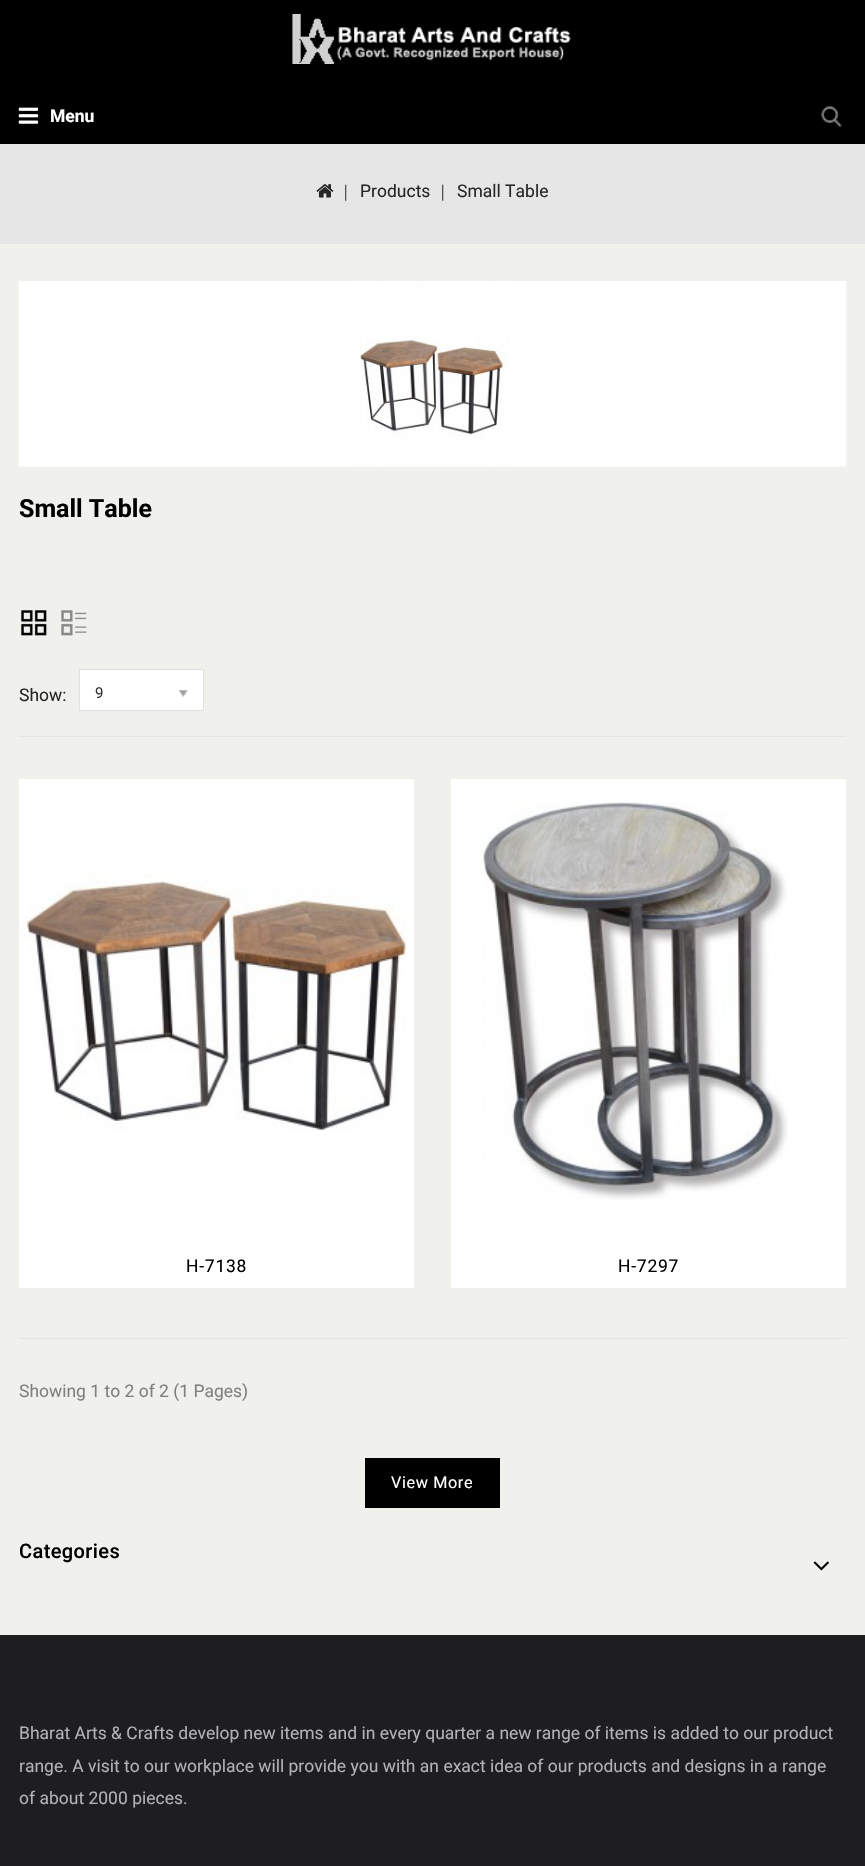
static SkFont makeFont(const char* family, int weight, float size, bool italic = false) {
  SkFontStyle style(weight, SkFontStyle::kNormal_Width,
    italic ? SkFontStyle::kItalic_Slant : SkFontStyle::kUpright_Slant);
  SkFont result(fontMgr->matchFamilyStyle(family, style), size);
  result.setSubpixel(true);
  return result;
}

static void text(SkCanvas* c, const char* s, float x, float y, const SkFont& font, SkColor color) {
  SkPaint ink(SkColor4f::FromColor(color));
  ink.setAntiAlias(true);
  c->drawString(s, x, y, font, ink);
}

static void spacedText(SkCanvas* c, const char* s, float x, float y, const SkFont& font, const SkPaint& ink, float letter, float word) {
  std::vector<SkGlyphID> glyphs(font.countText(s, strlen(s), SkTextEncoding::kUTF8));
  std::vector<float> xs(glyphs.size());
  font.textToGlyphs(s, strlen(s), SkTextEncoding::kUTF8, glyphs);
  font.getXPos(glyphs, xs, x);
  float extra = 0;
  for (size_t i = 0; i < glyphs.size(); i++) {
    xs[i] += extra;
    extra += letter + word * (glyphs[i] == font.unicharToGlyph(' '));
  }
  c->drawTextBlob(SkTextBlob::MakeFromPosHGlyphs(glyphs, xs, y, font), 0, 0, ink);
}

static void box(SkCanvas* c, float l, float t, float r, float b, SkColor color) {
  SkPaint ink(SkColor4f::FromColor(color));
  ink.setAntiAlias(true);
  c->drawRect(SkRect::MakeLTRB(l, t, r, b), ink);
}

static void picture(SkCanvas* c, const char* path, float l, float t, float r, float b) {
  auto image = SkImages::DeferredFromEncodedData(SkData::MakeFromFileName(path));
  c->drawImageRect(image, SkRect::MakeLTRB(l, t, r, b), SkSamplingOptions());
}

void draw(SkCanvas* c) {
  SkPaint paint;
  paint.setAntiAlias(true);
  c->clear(0xfff0f0ed);
  box(c, 0, 0, 865, 144, 0xff000000);
  picture(c, "img_01.png", 292, 14, 571, 64);
  picture(c, "img_02.png", 18, 107, 39, 124);
  SkFont face1 = makeFont("Roboto", 700, 17.5f);
  text(c, "Menu", 50, 122, face1, 0xffffffff);
  picture(c, "img_03.png", 821, 106, 842, 127);
  box(c, 0, 144, 865, 244, 0xffe6e6e6);
  picture(c, "img_04.png", 316, 184, 334, 198);
  SkFont face2 = makeFont("Liberation Serif", 400, 17.5f);
  text(c, "|", 344, 197, face2, 0xff262626);
  SkFont face3 = makeFont("Roboto", 400, 17.5f);
  text(c, "Products", 360, 197, face3, 0xff262626);
  text(c, "|", 441, 197, face2, 0xff262626);
  text(c, "Small Table", 457, 197, face3, 0xff262626);
  box(c, 19, 281, 846, 282, 0xffffffff);
  picture(c, "img_05.png", 18, 282, 847, 467);
  SkFont face4 = makeFont("Roboto", 700, 25);
  text(c, "Small Table", 19, 517, face4, 0xff000000);
  box(c, 19, 736, 846, 737, 0xffe5e5e5);
  picture(c, "img_06.png", 21, 610, 47, 636);
  picture(c, "img_07.png", 61, 610, 87, 636);
  text(c, "Show:", 19, 701, face3, 0xff262626);
  paint.setColor(0xffffffff);
  c->drawRect(SkRect::MakeLTRB(79.5f, 669.5f, 203.5f, 710.5f), paint);
  paint.setStyle(SkPaint::kStroke_Style);
  paint.setStrokeWidth(1);
  paint.setColor(0xffe0e0e0);
  c->drawRect(SkRect::MakeLTRB(79.5f, 669.5f, 203.5f, 710.5f), paint);
  picture(c, "img_08.png", 178, 690, 188, 697);
  SkFont face5 = makeFont("Roboto", 400, 15);
  text(c, "9", 95, 698, face5, 0xff333333);
  box(c, 19, 779, 414, 1288, 0xffffffff);
  picture(c, "img_09.png", 19, 874, 407, 1131);
  paint.setStyle(SkPaint::kFill_Style);
  paint.setColor(0xff000000);
  spacedText(c, "H-7138", 186, 1272, face3, paint, 0.75f, 0);
  box(c, 451, 779, 846, 1288, 0xffffffff);
  picture(c, "img_10.png", 480, 802, 788, 1200);
  spacedText(c, "H-7297", 618, 1272, face3, paint, 0.75f, 0);
  box(c, 19, 1338, 846, 1339, 0xffe5e5e5);
  text(c, "Showing 1 to 2 of 2 (1 Pages)", 19, 1397, face3, 0xff808080);
  box(c, 365, 1458, 500, 1508, 0xff000000);
  SkFont face6 = makeFont("Roboto", 400, 16.25f);
  paint.setColor(0xffffffff);
  spacedText(c, "View More", 391, 1488, face6, paint, 0.6f, 0);
  SkFont face7 = makeFont("Roboto", 500, 20);
  paint.setColor(0xff000000);
  spacedText(c, "Categories", 19, 1558, face7, paint, 0.4f, 0);
  picture(c, "img_11.png", 813, 1561, 829, 1571);
  box(c, 0, 1635, 865, 1866, 0xff1e1d22);
  text(c, "Bharat Arts & Crafts develop new items and in every quarter a new range of items is added to our product", 19, 1739, face3, 0xffb2b2b2);
  text(c, "range. A visit to our workplace will provide you with an exact idea of our products and designs in a range", 19, 1772, face3, 0xffb2b2b2);
  text(c, "of about 2000 pieces.", 19, 1804, face3, 0xffb2b2b2);
}
